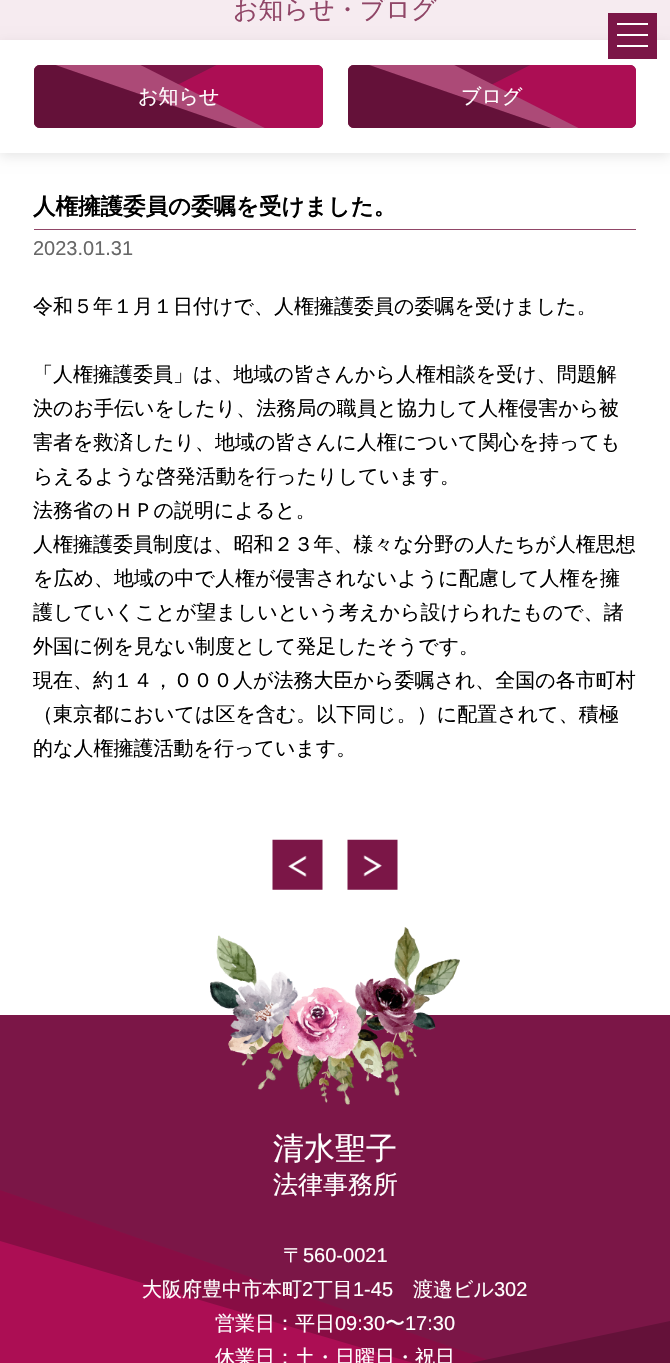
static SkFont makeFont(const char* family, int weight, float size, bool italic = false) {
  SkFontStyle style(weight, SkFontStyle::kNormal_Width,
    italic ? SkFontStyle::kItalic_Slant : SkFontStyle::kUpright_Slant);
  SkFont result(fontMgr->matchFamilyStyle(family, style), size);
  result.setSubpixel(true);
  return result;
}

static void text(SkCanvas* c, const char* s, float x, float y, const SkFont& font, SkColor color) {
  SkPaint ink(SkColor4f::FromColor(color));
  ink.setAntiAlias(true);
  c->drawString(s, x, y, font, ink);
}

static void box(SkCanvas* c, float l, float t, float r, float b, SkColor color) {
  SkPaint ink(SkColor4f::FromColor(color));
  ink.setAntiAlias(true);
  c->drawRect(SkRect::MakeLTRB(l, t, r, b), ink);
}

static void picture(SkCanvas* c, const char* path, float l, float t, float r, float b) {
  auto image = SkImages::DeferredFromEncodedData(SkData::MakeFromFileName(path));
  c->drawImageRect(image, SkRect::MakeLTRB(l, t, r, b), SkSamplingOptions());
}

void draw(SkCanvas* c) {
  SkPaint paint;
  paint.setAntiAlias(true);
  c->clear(0xffffffff);
  box(c, 0, 0, 670, 40, 0xfff6ebf0);
  SkFont face1 = makeFont("WenQuanYi Zen Hei", 500, 25);
  text(c, "お知らせ・ブログ", 233, 18, face1, 0xff904667);
  paint.setColor(0x1a000000);
  paint.setMaskFilter(SkMaskFilter::MakeBlur(kNormal_SkBlurStyle, 6));
  c->drawRect(SkRect::MakeLTRB(0, 44, 670, 156), paint);
  paint.setMaskFilter(nullptr);
  box(c, 0, 40, 670, 153, 0xffffffff);
  box(c, 608, 13, 657, 59, 0xff7b1647);
  box(c, 617, 23, 648, 25, 0xffffffff);
  box(c, 617, 34, 648, 36, 0xffffffff);
  box(c, 617, 45, 648, 47, 0xffffffff);
  picture(c, "img_01.png", 34, 65, 323, 128);
  SkFont face2 = makeFont("WenQuanYi Zen Hei", 500, 20);
  text(c, "お知らせ", 138, 103, face2, 0xffffffff);
  picture(c, "img_02.png", 348, 65, 636, 128);
  text(c, "ブログ", 461, 103, face2, 0xffffffff);
  box(c, 34, 229, 636, 230, 0xff904667);
  SkFont face3 = makeFont("WenQuanYi Zen Hei", 700, 22.5f);
  text(c, "人権擁護委員の委嘱を受けました。", 33, 214, face3, 0xff000000);
  SkFont face4 = makeFont("Liberation Sans", 400, 20);
  text(c, "2023.01.31", 33, 255, face4, 0xff676767);
  text(c, "令和５年１月１日付けで、人権擁護委員の委嘱を受けました。", 33, 313, face2, 0xff000000);
  text(c, "「人権擁護委員」は、地域の皆さんから人権相談を受け、問題解", 33, 381, face2, 0xff000000);
  text(c, "決のお手伝いをしたり、法務局の職員と協力して人権侵害から被", 33, 415, face2, 0xff000000);
  text(c, "害者を救済したり、地域の皆さんに人権について関心を持っても", 33, 449, face2, 0xff000000);
  text(c, "らえるような啓発活動を行ったりしています。", 33, 483, face2, 0xff000000);
  text(c, "法務省のＨＰの説明によると。", 33, 517, face2, 0xff000000);
  text(c, "人権擁護委員制度は、昭和２３年、様々な分野の人たちが人権思想", 33, 551, face2, 0xff000000);
  text(c, "を広め、地域の中で人権が侵害されないように配慮して人権を擁", 33, 585, face2, 0xff000000);
  text(c, "護していくことが望ましいという考えから設けられたもので、諸", 33, 619, face2, 0xff000000);
  text(c, "外国に例を見ない制度として発足したそうです。", 33, 653, face2, 0xff000000);
  text(c, "現在、約１４，０００人が法務大臣から委嘱され、全国の各市町村", 33, 687, face2, 0xff000000);
  text(c, "（東京都においては区を含む。以下同じ。）に配置されて、積極", 33, 721, face2, 0xff000000);
  text(c, "的な人権擁護活動を行っています。", 33, 755, face2, 0xff000000);
  picture(c, "img_03.png", 272, 839, 323, 890);
  picture(c, "img_04.png", 347, 839, 398, 890);
  box(c, 0, 1015, 670, 1360, 0xff7b1647);
  paint.setColor(0xff880d44);
  c->drawPath(SkPathBuilder().moveTo(-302, 1085).lineTo(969, 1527).lineTo(-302, 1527).close().detach(), paint);
  paint.setColor(0xff641139);
  c->drawPath(SkPathBuilder().moveTo(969, 1258).lineTo(-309, 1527).lineTo(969, 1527).close().detach(), paint);
  paint.setColor(0xffac0e54);
  c->drawPath(SkPathBuilder().moveTo(-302, 1152).lineTo(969, 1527).lineTo(-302, 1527).close().detach(), paint);
  picture(c, "img_05.png", 210, 927, 460, 1105);
  SkFont face5 = makeFont("WenQuanYi Zen Hei", 500, 31);
  text(c, "清水聖子", 273, 1159, face5, 0xffffffff);
  text(c, "法律事務所", 273, 1193, face1, 0xffffffff);
  text(c, "〒", 283, 1262, face2, 0xffffffff);
  text(c, "560-0021", 303, 1262, face4, 0xffffffff);
  text(c, "大阪府豊中市本町", 142, 1296, face2, 0xffffffff);
  text(c, "2", 302, 1296, face4, 0xffffffff);
  text(c, "丁目", 313, 1296, face2, 0xffffffff);
  text(c, "1-45", 353, 1296, face4, 0xffffffff);
  text(c, "渡邉ビル", 413, 1296, face2, 0xffffffff);
  text(c, "302", 494, 1296, face4, 0xffffffff);
  text(c, "営業日：平日", 215, 1330, face2, 0xffffffff);
  text(c, "09:30", 335, 1330, face4, 0xffffffff);
  text(c, "〜", 385, 1330, face2, 0xffffffff);
  text(c, "17:30", 405, 1330, face4, 0xffffffff);
  text(c, "休業日：土・日曜日・祝日", 215, 1364, face2, 0xffffffff);
}
